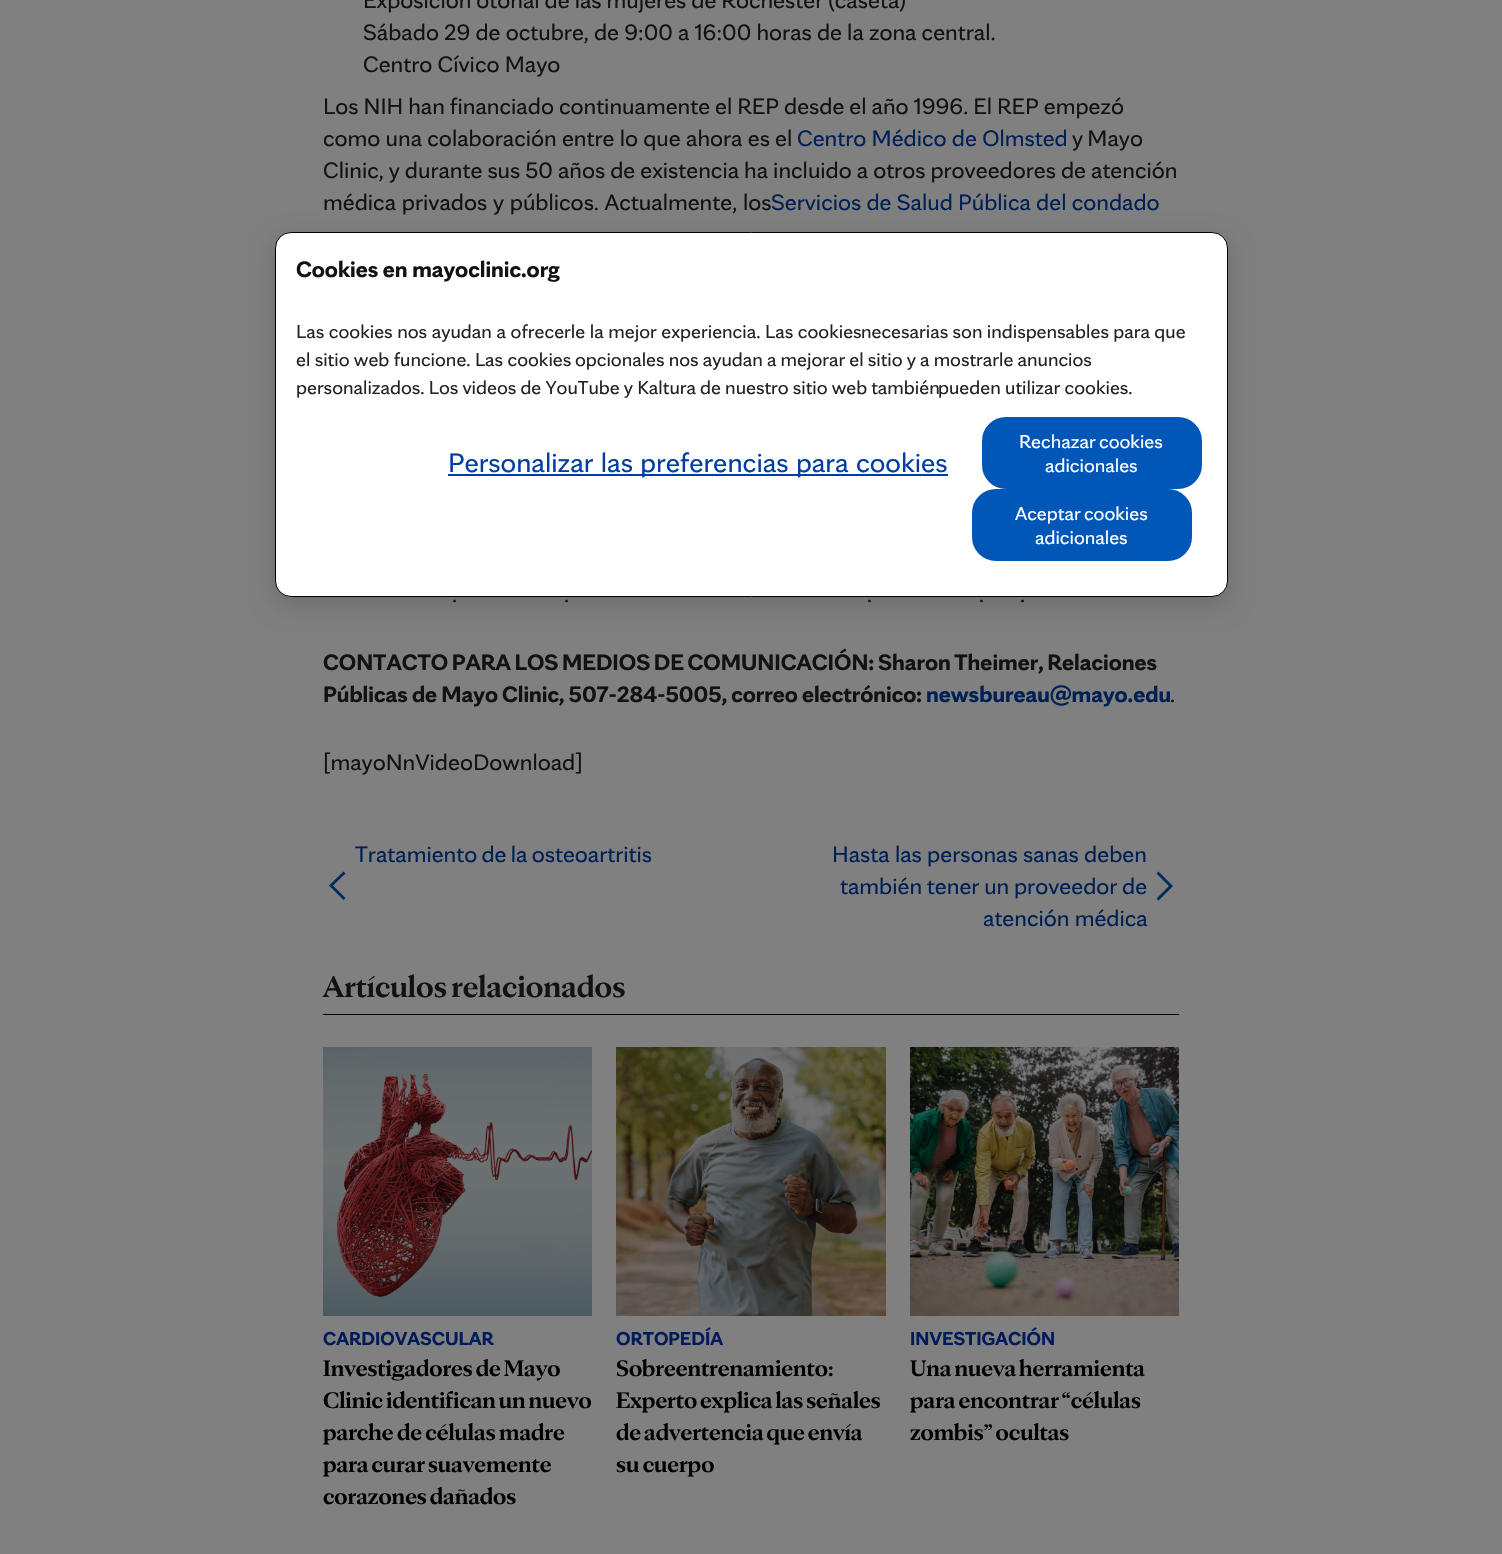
static SkFont makeFont(const char* family, int weight, float size, bool italic = false) {
  SkFontStyle style(weight, SkFontStyle::kNormal_Width,
    italic ? SkFontStyle::kItalic_Slant : SkFontStyle::kUpright_Slant);
  SkFont result(fontMgr->matchFamilyStyle(family, style), size);
  result.setSubpixel(true);
  return result;
}

static void text(SkCanvas* c, const char* s, float x, float y, const SkFont& font, SkColor color) {
  SkPaint ink(SkColor4f::FromColor(color));
  ink.setAntiAlias(true);
  c->drawString(s, x, y, font, ink);
}

static void spacedText(SkCanvas* c, const char* s, float x, float y, const SkFont& font, const SkPaint& ink, float letter, float word) {
  std::vector<SkGlyphID> glyphs(font.countText(s, strlen(s), SkTextEncoding::kUTF8));
  std::vector<float> xs(glyphs.size());
  font.textToGlyphs(s, strlen(s), SkTextEncoding::kUTF8, glyphs);
  font.getXPos(glyphs, xs, x);
  float extra = 0;
  for (size_t i = 0; i < glyphs.size(); i++) {
    xs[i] += extra;
    extra += letter + word * (glyphs[i] == font.unicharToGlyph(' '));
  }
  c->drawTextBlob(SkTextBlob::MakeFromPosHGlyphs(glyphs, xs, y, font), 0, 0, ink);
}

static void box(SkCanvas* c, float l, float t, float r, float b, SkColor color) {
  SkPaint ink(SkColor4f::FromColor(color));
  ink.setAntiAlias(true);
  c->drawRect(SkRect::MakeLTRB(l, t, r, b), ink);
}

static void picture(SkCanvas* c, const char* path, float l, float t, float r, float b) {
  auto image = SkImages::DeferredFromEncodedData(SkData::MakeFromFileName(path));
  c->drawImageRect(image, SkRect::MakeLTRB(l, t, r, b), SkSamplingOptions());
}

void draw(SkCanvas* c) {
  SkPaint paint;
  paint.setAntiAlias(true);
  c->clear(0xff808080);
  SkFont face1 = makeFont("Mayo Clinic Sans", 400, 24);
  paint.setColor(0xff101213);
  spacedText(c, "Exposición otoñal de las mujeres de Rochester (caseta)", 363, 8, face1, paint, 0, -0.25f);
  spacedText(c, "Sábado 29 de octubre, de 9:00 a 16:00 horas de la zona central.", 363, 40, face1, paint, 0, -0.1f);
  text(c, "Centro Cívico Mayo", 363, 72, face1, 0xff101213);
  spacedText(c, "Los NIH han financiado continuamente el REP desde el año 1996. El REP empezó", 323, 114, face1, paint, 0, -0.25f);
  text(c, "como una colaboración entre lo que ahora es el", 323, 146, face1, 0xff101213);
  text(c, "Centro Médico de Olmsted", 797, 146, face1, 0xff001f53);
  spacedText(c, "y Mayo", 1072, 146, face1, paint, 0, -1);
  spacedText(c, "Clinic, y durante sus 50 años de existencia ha incluido a otros proveedores de atención", 323, 178, face1, paint, 0, -0.25f);
  spacedText(c, "médica privados y públicos. Actualmente, los", 323, 210, face1, paint, 0, 0.5f);
  text(c, "Servicios de Salud Pública del condado", 771, 210, face1, 0xff001f53);
  text(c, ".", 452, 602, face1, 0xff001f53);
  text(c, ".", 564, 602, face1, 0xff001f53);
  text(c, ".", 867, 602, face1, 0xff001f53);
  text(c, ".", 979, 602, face1, 0xff001f53);
  text(c, ".", 1020, 602, face1, 0xff101213);
  SkFont face2 = makeFont("Mayo Clinic Sans", 700, 24);
  spacedText(c, "CONTACTO PARA LOS MEDIOS DE COMUNICACIÓN: Sharon Theimer, Relaciones", 323, 670, face2, paint, 0, -1);
  spacedText(c, "Públicas de Mayo Clinic, 507-284-5005, correo electrónico", 323, 702, face2, paint, 0, -0.5f);
  text(c, ":", 916, 702, face2, 0xff101213);
  text(c, "newsbureau@mayo.edu", 926, 702, face2, 0xff001f53);
  text(c, ".", 1170, 702, face1, 0xff101213);
  text(c, "[mayoNnVideoDownload]", 323, 770, face1, 0xff101213);
  paint.setColor(0xff001f53);
  spacedText(c, "Tratamiento de la osteoartritis", 355, 862, face1, paint, 0, -1);
  paint.setColor(0xff002c5c);
  c->drawPath(SkPathBuilder().moveTo(343.5f, 871.5f).lineTo(345.5f, 873.5f).lineTo(333, 885.5f).lineTo(345.5f, 898).lineTo(343.5f, 900).lineTo(329, 885.5f).close().detach(), paint);
  text(c, "Hasta las personas sanas deben", 832, 862, face1, 0xff001f53);
  paint.setColor(0xff001f53);
  spacedText(c, "también tener un proveedor de", 840, 894, face1, paint, 0, -0.5f);
  paint.setColor(0xff002c5c);
  c->drawPath(SkPathBuilder().moveTo(1158.5f, 900.5f).lineTo(1156.5f, 898.5f).lineTo(1169, 886).lineTo(1156.5f, 873.5f).lineTo(1158.5f, 871.5f).lineTo(1173, 886).close().detach(), paint);
  text(c, "atención médica", 983, 926, face1, 0xff001f53);
  box(c, 323, 1014, 1179, 1015, 0xff000000);
  SkFont face3 = makeFont("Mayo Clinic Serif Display", 700, 32);
  paint.setColor(0xff101213);
  spacedText(c, "Artículos relacionados", 323, 997, face3, paint, 0, -1);
  picture(c, "img_01.png", 323, 1047, 592, 1316);
  SkFont face4 = makeFont("Mayo Clinic Sans", 700, 20);
  text(c, "CARDIOVASCULAR", 323, 1345, face4, 0xff001b5c);
  SkFont face5 = makeFont("Mayo Clinic Serif Display", 700, 24);
  paint.setColor(0xff000000);
  spacedText(c, "Investigadores de Mayo", 323, 1376, face5, paint, 0, -1);
  spacedText(c, "Clinic identifican un nuevo", 323, 1408, face5, paint, 0, -1);
  spacedText(c, "parche de células madre", 323, 1440, face5, paint, 0, -0.5f);
  spacedText(c, "para curar suavemente", 323, 1472, face5, paint, 0, -1);
  spacedText(c, "corazones dañados", 323, 1504, face5, paint, 0, -1);
  picture(c, "img_02.png", 616, 1047, 886, 1316);
  text(c, "ORTOPEDÍA", 616, 1345, face4, 0xff001b5c);
  text(c, "Sobreentrenamiento:", 616, 1376, face5, 0xff000000);
  spacedText(c, "Experto explica las señales", 616, 1408, face5, paint, 0, -1);
  spacedText(c, "de advertencia que envía", 616, 1440, face5, paint, 0, -1);
  spacedText(c, "su cuerpo", 616, 1472, face5, paint, 0, -0.5f);
  picture(c, "img_03.png", 910, 1047, 1179, 1316);
  text(c, "INVESTIGACIÓN", 910, 1345, face4, 0xff001b5c);
  spacedText(c, "Una nueva herramienta", 910, 1376, face5, paint, 0, -1);
  spacedText(c, "para encontrar “células", 910, 1408, face5, paint, 0, -1);
  spacedText(c, "zombis” ocultas", 910, 1440, face5, paint, 0, -1);
  paint.setColor(0x29000000);
  paint.setMaskFilter(SkMaskFilter::MakeBlur(kNormal_SkBlurStyle, 12));
  c->drawRoundRect(SkRect::MakeLTRB(275, 240, 1228, 605), 16, 16, paint);
  paint.setMaskFilter(nullptr);
  paint.setColor(0xffffffff);
  c->drawRoundRect(SkRect::MakeLTRB(275.5f, 232.5f, 1227.5f, 596.5f), 15.5f, 15.5f, paint);
  paint.setStyle(SkPaint::kStroke_Style);
  paint.setStrokeWidth(1);
  paint.setColor(0xff000000);
  c->drawRoundRect(SkRect::MakeLTRB(275.5f, 232.5f, 1227.5f, 596.5f), 15.5f, 15.5f, paint);
  text(c, "Cookies en mayoclinic.org", 296, 277, face2, 0xff101213);
  SkFont face6 = makeFont("Mayo Clinic Sans", 400, 20);
  paint.setStyle(SkPaint::kFill_Style);
  paint.setColor(0xff202426);
  spacedText(c, "Las cookies nos ayudan a ofrecerle la mejor experiencia. Las cookies", 296, 338, face6, paint, 0, 0.25f);
  text(c, "necesarias son indispensables para que", 861, 338, face6, 0xff202426);
  text(c, "el sitio web funcione. Las cookies", 296, 366, face6, 0xff202426);
  spacedText(c, "opcionales nos ayudan a mejorar el sitio y a mostrarle anuncios", 575, 366, face6, paint, 0, -0.25f);
  spacedText(c, "personalizados. Los videos de YouTube y Kaltura de nuestro sitio web también", 296, 394, face6, paint, 0, -0.25f);
  text(c, "pueden utilizar cookies.", 938, 394, face6, 0xff202426);
  box(c, 448, 474, 948, 476, 0xff003da5);
  SkFont face7 = makeFont("Mayo Clinic Sans", 400, 28.75f);
  paint.setColor(0xff003da5);
  spacedText(c, "Personalizar las preferencias para cookies", 448, 472, face7, paint, 0, 1);
  paint.setColor(0xff0057b8);
  c->drawRoundRect(SkRect::MakeLTRB(983, 418, 1201, 488), 23, 23, paint);
  paint.setStyle(SkPaint::kStroke_Style);
  paint.setStrokeWidth(2);
  c->drawRoundRect(SkRect::MakeLTRB(983, 418, 1201, 488), 23, 23, paint);
  paint.setStyle(SkPaint::kFill_Style);
  paint.setColor(0xffffffff);
  spacedText(c, "Rechazar cookies", 1019, 448, face6, paint, 0, -1);
  text(c, "adicionales", 1045, 472, face6, 0xffffffff);
  paint.setColor(0xff0057b8);
  c->drawRoundRect(SkRect::MakeLTRB(973, 490, 1191, 560), 23, 23, paint);
  paint.setStyle(SkPaint::kStroke_Style);
  c->drawRoundRect(SkRect::MakeLTRB(973, 490, 1191, 560), 23, 23, paint);
  paint.setStyle(SkPaint::kFill_Style);
  paint.setColor(0xffffffff);
  spacedText(c, "Aceptar cookies", 1015, 520, face6, paint, 0, -1);
  text(c, "adicionales", 1035, 544, face6, 0xffffffff);
}
